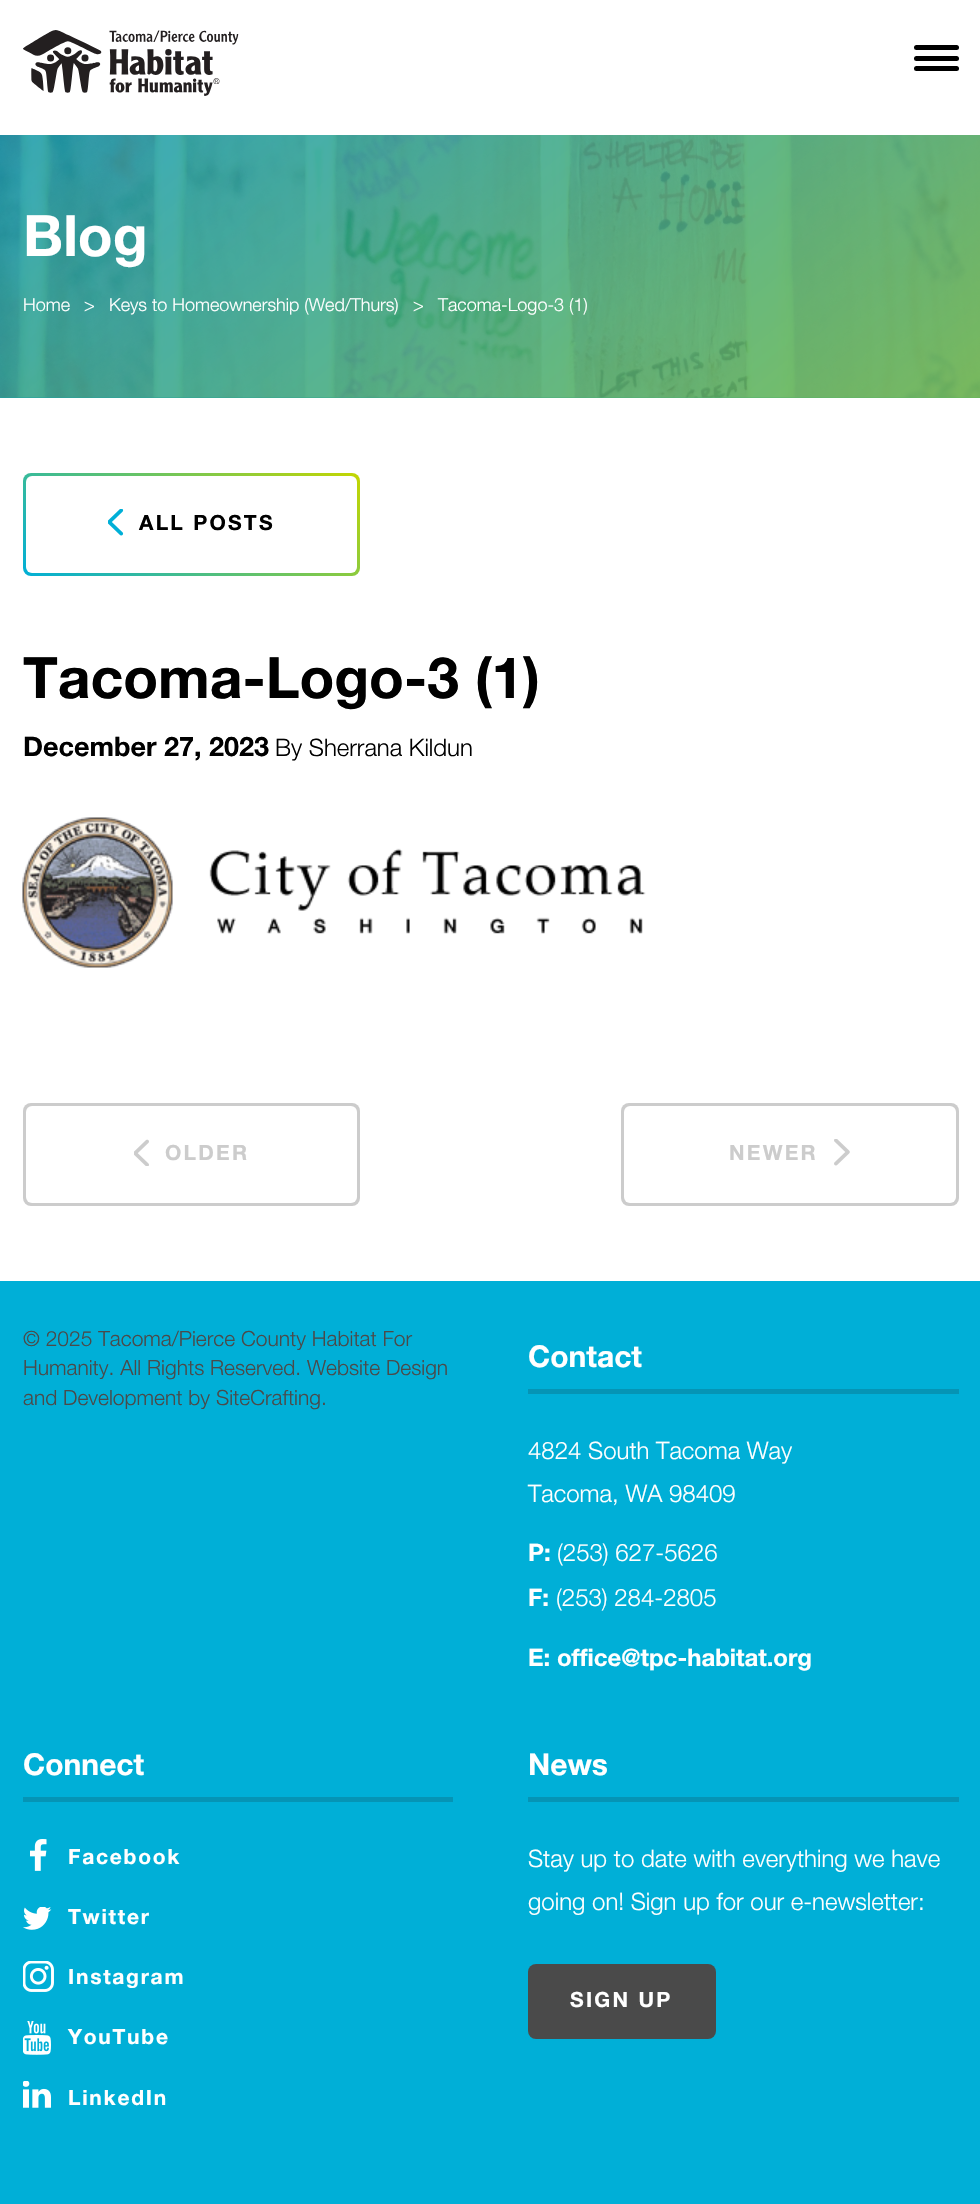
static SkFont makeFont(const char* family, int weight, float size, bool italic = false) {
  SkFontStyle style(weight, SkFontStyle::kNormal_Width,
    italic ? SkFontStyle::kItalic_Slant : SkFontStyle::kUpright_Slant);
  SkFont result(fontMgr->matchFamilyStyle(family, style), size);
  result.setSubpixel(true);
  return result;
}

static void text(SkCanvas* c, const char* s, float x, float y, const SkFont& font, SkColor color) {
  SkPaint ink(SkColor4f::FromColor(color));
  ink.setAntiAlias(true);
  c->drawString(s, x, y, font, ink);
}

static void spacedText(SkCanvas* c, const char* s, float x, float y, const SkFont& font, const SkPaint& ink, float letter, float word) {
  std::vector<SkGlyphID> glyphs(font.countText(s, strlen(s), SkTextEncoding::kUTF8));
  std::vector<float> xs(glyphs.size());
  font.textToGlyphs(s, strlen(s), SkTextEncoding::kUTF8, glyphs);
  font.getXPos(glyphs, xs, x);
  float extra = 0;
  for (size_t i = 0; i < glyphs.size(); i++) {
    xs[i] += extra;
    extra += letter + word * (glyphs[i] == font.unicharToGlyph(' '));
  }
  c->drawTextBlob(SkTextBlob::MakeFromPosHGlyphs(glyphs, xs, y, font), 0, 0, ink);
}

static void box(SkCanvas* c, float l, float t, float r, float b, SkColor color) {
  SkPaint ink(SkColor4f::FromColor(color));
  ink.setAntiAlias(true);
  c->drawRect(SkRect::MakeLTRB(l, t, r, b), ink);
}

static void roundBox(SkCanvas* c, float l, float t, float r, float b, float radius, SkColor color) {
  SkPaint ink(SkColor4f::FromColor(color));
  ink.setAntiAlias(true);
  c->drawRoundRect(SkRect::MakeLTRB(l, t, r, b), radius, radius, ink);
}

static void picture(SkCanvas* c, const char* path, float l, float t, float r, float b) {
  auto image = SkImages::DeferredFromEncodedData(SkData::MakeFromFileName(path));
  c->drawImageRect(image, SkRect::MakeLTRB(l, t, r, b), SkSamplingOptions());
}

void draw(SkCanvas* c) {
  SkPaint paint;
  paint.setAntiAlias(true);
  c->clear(0xff00afd7);
  box(c, 0, 0, 980, 1281, 0xffffffff);
  picture(c, "img_01.png", 23, 30, 239, 96);
  roundBox(c, 914, 45, 959, 50, 2.5f, 0xff000000);
  roundBox(c, 914, 56, 959, 61, 2.5f, 0xff000000);
  roundBox(c, 914, 66, 959, 71, 2.5f, 0xff000000);
  box(c, 0, 397, 980, 398, 0xff0499bc);
  picture(c, "img_02.png", 0, 135, 980, 398);
  {
    const SkColor colors[] = {0x00c4d600, 0x80c4d600};
    const float stops[] = {0, 1};
    const SkPoint ends[] = {{232, -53}, {749, 585}};
    paint.setShader(SkGradientShader::MakeLinear(ends, colors, stops, 2, SkTileMode::kClamp));
    paint.setAlpha(255);
  }
  c->drawRect(SkRect::MakeLTRB(0, 135, 980, 398), paint);
  SkFont face1 = makeFont("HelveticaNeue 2", 400, 57);
  text(c, "Blog", 23, 256, face1, 0xffffffff);
  SkFont face2 = makeFont("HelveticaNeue", 400, 18);
  text(c, "Home", 23, 311, face2, 0xffffffff);
  text(c, ">", 84, 311, face2, 0xffffffff);
  text(c, "Keys to Homeownership (Wed/Thurs)", 109, 311, face2, 0xffffffff);
  text(c, ">", 413, 311, face2, 0xffffffff);
  text(c, "Tacoma-Logo-3 (1)", 438, 311, face2, 0xffffffff);
  {
    const SkColor colors[] = {0xffc4d600, 0xff00afd7};
    const float stops[] = {0, 1};
    const SkPoint ends[] = {{280, 410}, {102, 638}};
    paint.setShader(SkGradientShader::MakeLinear(ends, colors, stops, 2, SkTileMode::kClamp));
    paint.setAlpha(255);
  }
  c->drawRoundRect(SkRect::MakeLTRB(23, 473, 360, 576), 8, 8, paint);
  roundBox(c, 26, 476, 357, 573, 6, 0xffffffff);
  picture(c, "img_03.png", 108, 509, 124, 536);
  SkFont face3 = makeFont("HelveticaNeue 2", 400, 21);
  paint.setShader(nullptr);
  paint.setColor(0xff000000);
  spacedText(c, "ALL POSTS", 139, 530, face3, paint, 2.25f, 0);
  text(c, "Tacoma-Logo-3 (1)", 23, 698, face1, 0xff000000);
  SkFont face4 = makeFont("HelveticaNeue 2", 400, 27);
  text(c, "December 27, 2023", 23, 756, face4, 0xff000000);
  SkFont face5 = makeFont("HelveticaNeue", 400, 24);
  text(c, "By Sherrana Kildun", 275, 756, face5, 0xff000000);
  picture(c, "img_04.png", 22, 817, 646, 968);
  roundBox(c, 23, 1103, 360, 1206, 8, 0xffcccccc);
  roundBox(c, 26, 1106, 357, 1203, 6, 0xffffffff);
  picture(c, "img_05.png", 134, 1139, 149, 1166);
  paint.setColor(0xffcccccc);
  spacedText(c, "OLDER", 165, 1160, face3, paint, 2.25f, 0);
  roundBox(c, 621, 1103, 959, 1206, 8, 0xffcccccc);
  roundBox(c, 624, 1106, 956, 1203, 6, 0xffffffff);
  spacedText(c, "NEWER", 729, 1160, face3, paint, 2.25f, 0);
  picture(c, "img_06.png", 834, 1139, 850, 1166);
  SkFont face6 = makeFont("HelveticaNeue", 400, 21);
  text(c, "© 2025 Tacoma/Pierce County Habitat For", 23, 1346, face6, 0xff4a4a4a);
  text(c, "Humanity. All Rights Reserved. Website Design", 23, 1375, face6, 0xff4a4a4a);
  text(c, "and Development by SiteCrafting.", 23, 1405, face6, 0xff4a4a4a);
  box(c, 528, 1389, 959, 1394, 0xff0594b5);
  SkFont face7 = makeFont("HelveticaNeue 2", 400, 30);
  text(c, "Contact", 528, 1367, face7, 0xffffffff);
  text(c, "4824 South Tacoma Way", 528, 1459, face5, 0xffffffff);
  text(c, "Tacoma, WA 98409", 528, 1502, face5, 0xffffffff);
  SkFont face8 = makeFont("HelveticaNeue 2", 400, 24);
  text(c, "P:", 528, 1561, face8, 0xffffffff);
  text(c, "(253) 627-5626", 557, 1561, face5, 0xffffffff);
  text(c, "F:", 528, 1606, face8, 0xffffffff);
  text(c, "(253) 284-2805", 556, 1606, face5, 0xffffffff);
  text(c, "E: office@tpc-habitat.org", 528, 1666, face8, 0xffffffff);
  box(c, 23, 1797, 453, 1802, 0xff0594b5);
  text(c, "Connect", 23, 1775, face7, 0xffffffff);
  picture(c, "img_07.png", 30, 1839, 47, 1871);
  paint.setColor(0xffffffff);
  spacedText(c, "Facebook", 68, 1864, face3, paint, 1.75f, 0);
  picture(c, "img_08.png", 23, 1907, 52, 1930);
  spacedText(c, "Twitter", 68, 1924, face3, paint, 1.75f, 0);
  picture(c, "img_09.png", 23, 1961, 54, 1992);
  spacedText(c, "Instagram", 68, 1984, face3, paint, 1.75f, 0);
  picture(c, "img_10.png", 23, 2021, 51, 2055);
  spacedText(c, "YouTube", 68, 2044, face3, paint, 1.75f, 0);
  picture(c, "img_11.png", 23, 2081, 51, 2108);
  spacedText(c, "LinkedIn", 68, 2105, face3, paint, 1.75f, 0);
  box(c, 528, 1797, 959, 1802, 0xff0594b5);
  text(c, "News", 528, 1775, face7, 0xffffffff);
  text(c, "Stay up to date with everything we have", 528, 1867, face5, 0xffffffff);
  text(c, "going on! Sign up for our e-newsletter:", 528, 1910, face5, 0xffffffff);
  roundBox(c, 528, 1964, 716, 2039, 8, 0xff4a4a4a);
  spacedText(c, "SIGN UP", 570, 2007, face3, paint, 2.25f, 0);
}
